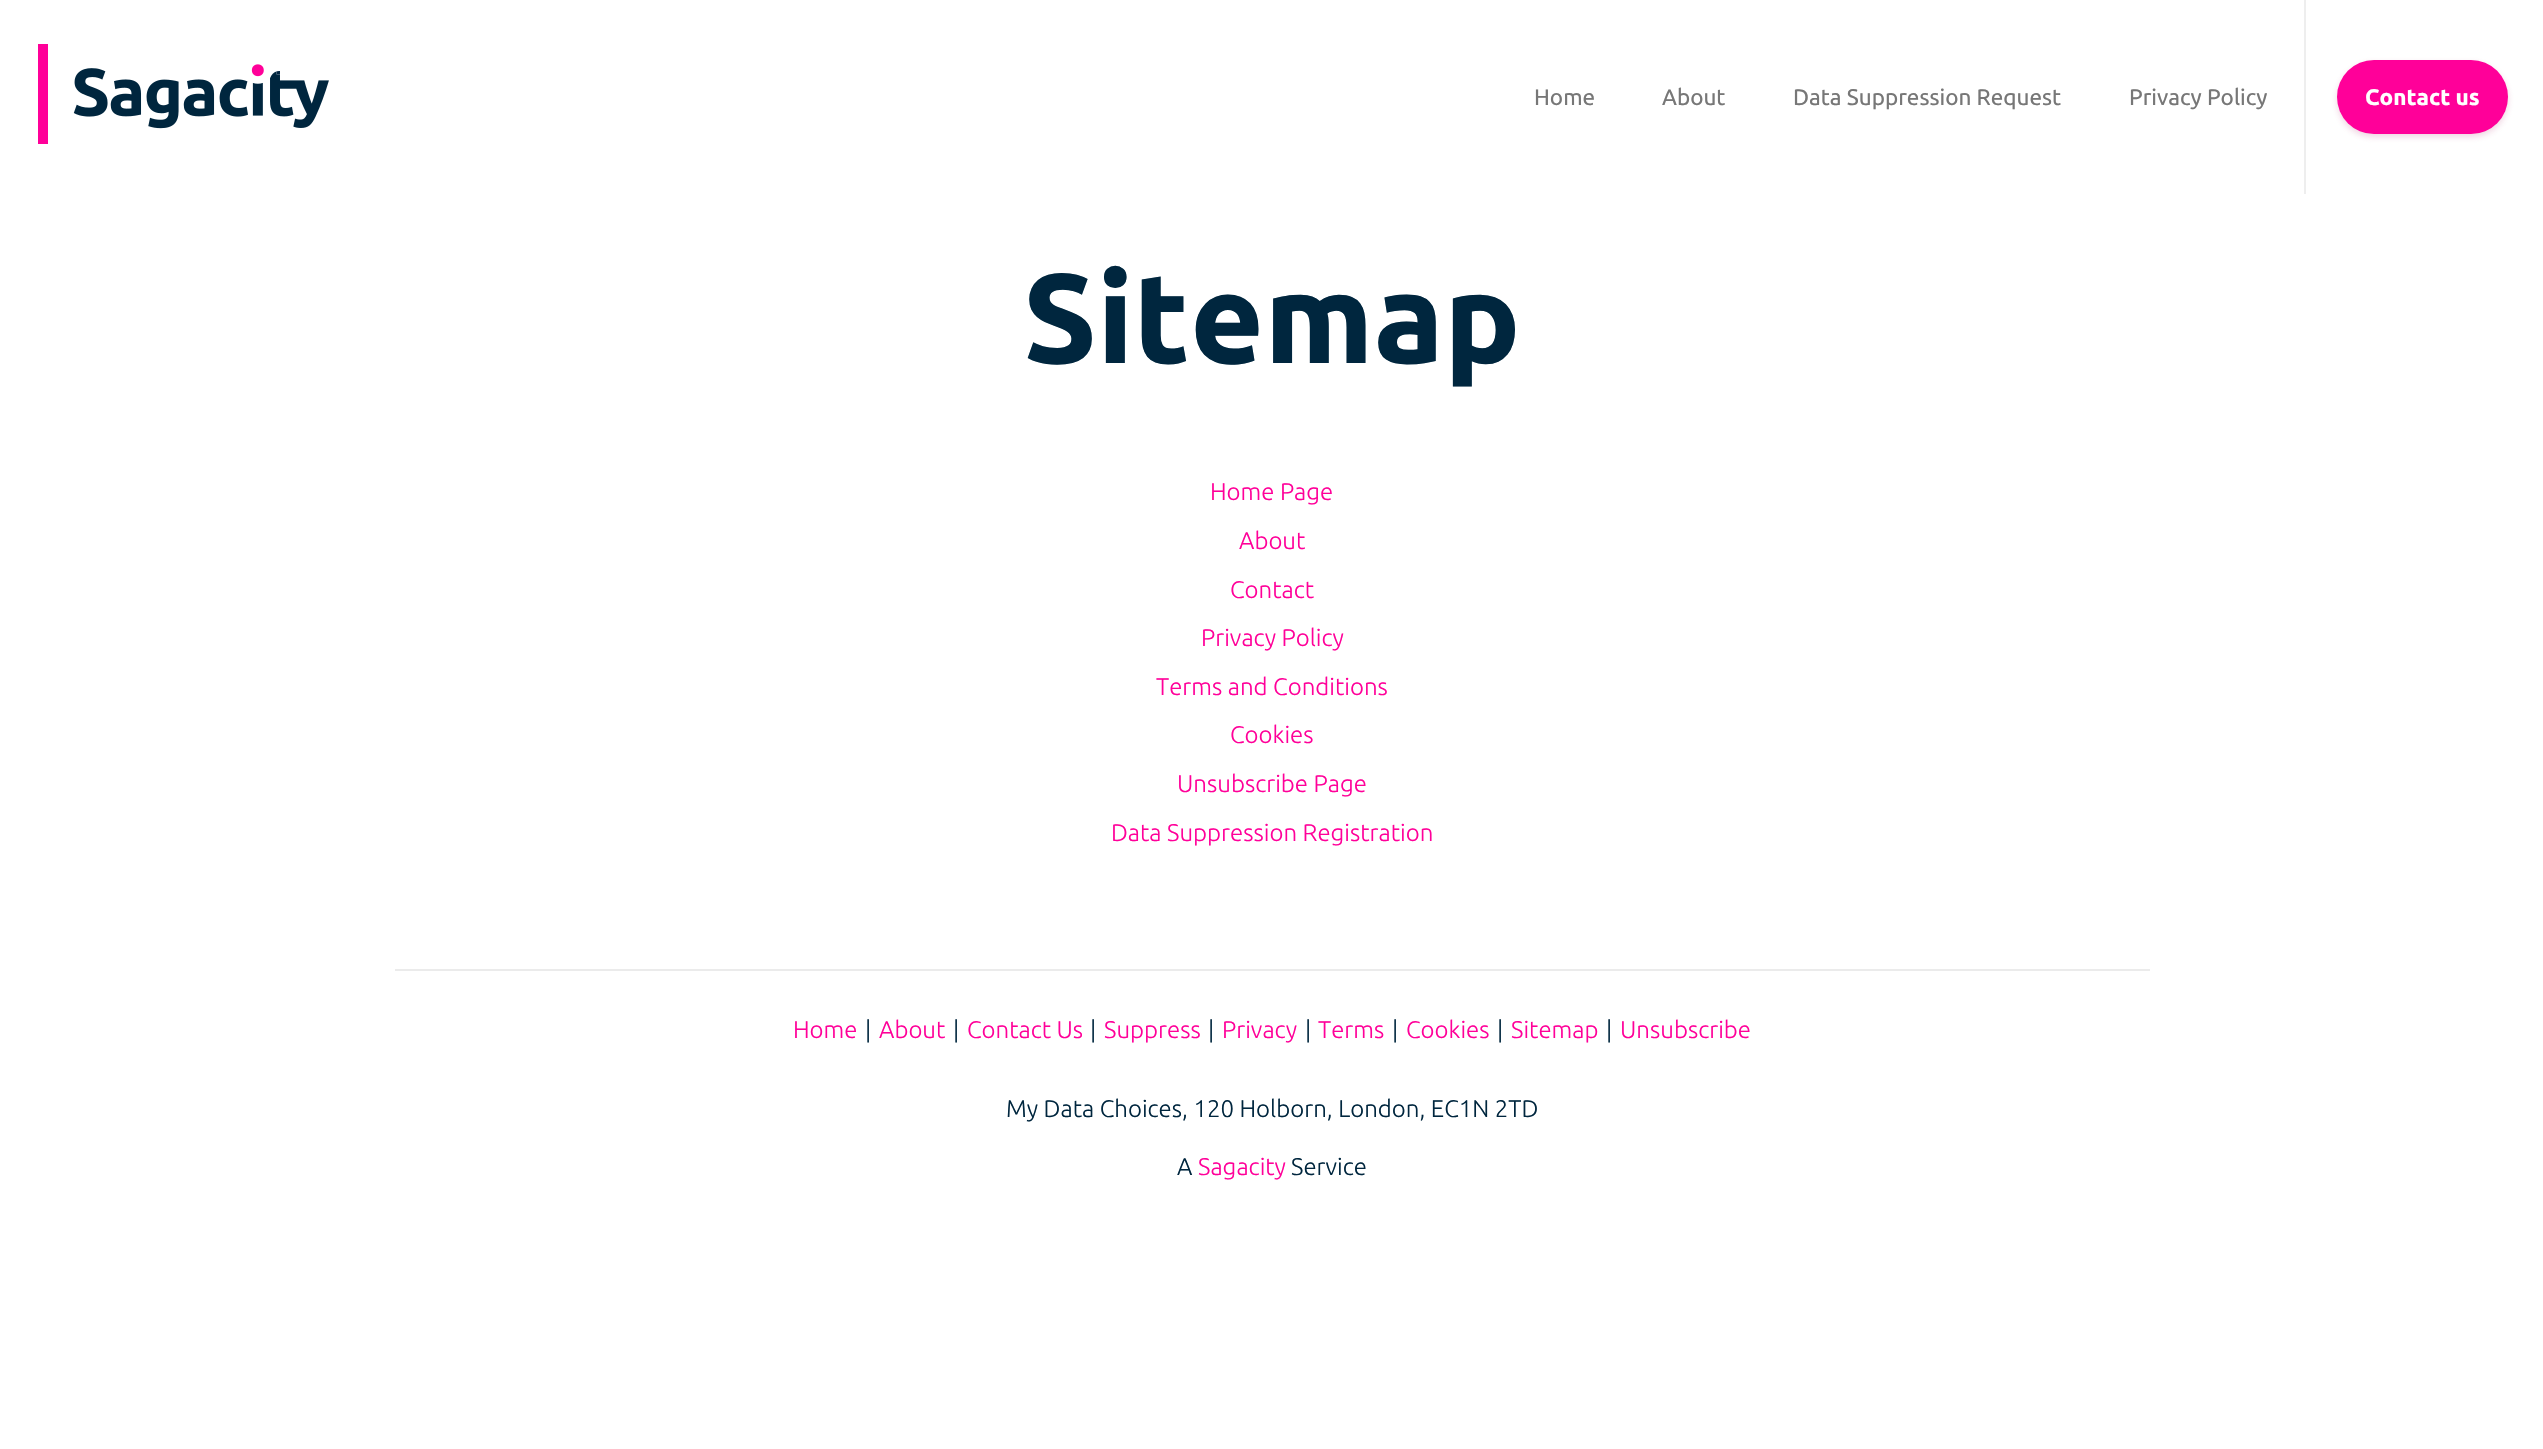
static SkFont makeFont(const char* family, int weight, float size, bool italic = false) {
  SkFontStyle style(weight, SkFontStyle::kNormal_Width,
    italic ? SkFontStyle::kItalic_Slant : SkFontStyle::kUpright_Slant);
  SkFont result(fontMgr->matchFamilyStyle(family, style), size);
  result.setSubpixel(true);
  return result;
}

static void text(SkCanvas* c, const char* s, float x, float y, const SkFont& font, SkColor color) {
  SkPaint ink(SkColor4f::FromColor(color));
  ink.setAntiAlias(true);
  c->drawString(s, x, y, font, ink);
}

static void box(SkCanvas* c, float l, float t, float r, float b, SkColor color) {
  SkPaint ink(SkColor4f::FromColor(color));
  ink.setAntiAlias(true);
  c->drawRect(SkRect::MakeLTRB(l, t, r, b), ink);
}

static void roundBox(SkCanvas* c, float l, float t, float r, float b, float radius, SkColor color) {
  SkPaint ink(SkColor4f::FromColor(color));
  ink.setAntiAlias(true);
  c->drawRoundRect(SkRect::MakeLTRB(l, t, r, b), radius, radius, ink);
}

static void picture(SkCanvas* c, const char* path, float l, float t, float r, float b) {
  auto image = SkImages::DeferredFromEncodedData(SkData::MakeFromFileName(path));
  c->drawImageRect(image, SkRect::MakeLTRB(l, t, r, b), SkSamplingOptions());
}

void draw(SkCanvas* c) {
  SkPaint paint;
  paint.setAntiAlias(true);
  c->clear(0xffffffff);
  picture(c, "img_01.png", 38, 44, 329, 144);
  SkFont face1 = makeFont("Ubuntu", 400, 22.5f);
  text(c, "Home", 1534, 105, face1, 0xff777777);
  text(c, "About", 1662, 105, face1, 0xff777777);
  text(c, "Data Suppression Request", 1793, 105, face1, 0xff777777);
  text(c, "Privacy Policy", 2129, 105, face1, 0xff777777);
  box(c, 2304, 0, 2306, 194, 0xffeeeeee);
  paint.setColor(0x33b52c6e);
  paint.setMaskFilter(SkMaskFilter::MakeBlur(kNormal_SkBlurStyle, 3));
  c->drawRoundRect(SkRect::MakeLTRB(2337, 63, 2508, 137), 37, 37, paint);
  paint.setMaskFilter(nullptr);
  roundBox(c, 2337, 60, 2508, 134, 37, 0xffff0099);
  SkFont face2 = makeFont("Ubuntu", 700, 22.5f);
  text(c, "Contact us", 2365, 105, face2, 0xffffffff);
  SkFont face3 = makeFont("Ubuntu", 700, 127);
  text(c, "Sitemap", 1023, 363, face3, 0xff00263e);
  SkFont face4 = makeFont("Ubuntu", 300, 24);
  text(c, "Home Page", 1210, 500, face4, 0xffff0099);
  text(c, "About", 1239, 549, face4, 0xffff0099);
  text(c, "Contact", 1230, 598, face4, 0xffff0099);
  text(c, "Privacy Policy", 1201, 646, face4, 0xffff0099);
  text(c, "Terms and Conditions", 1156, 695, face4, 0xffff0099);
  text(c, "Cookies", 1230, 743, face4, 0xffff0099);
  text(c, "Unsubscribe Page", 1177, 792, face4, 0xffff0099);
  text(c, "Data Suppression Registration", 1111, 841, face4, 0xffff0099);
  box(c, 395, 969, 2150, 971, 0xffebebeb);
  text(c, "Home", 793, 1038, face4, 0xffff0099);
  text(c, "|", 865, 1038, face4, 0xff00263e);
  text(c, "About", 879, 1038, face4, 0xffff0099);
  text(c, "|", 953, 1038, face4, 0xff00263e);
  text(c, "Contact Us", 967, 1038, face4, 0xffff0099);
  text(c, "|", 1090, 1038, face4, 0xff00263e);
  text(c, "Suppress", 1104, 1038, face4, 0xffff0099);
  text(c, "|", 1208, 1038, face4, 0xff00263e);
  text(c, "Privacy", 1222, 1038, face4, 0xffff0099);
  text(c, "|", 1305, 1038, face4, 0xff00263e);
  text(c, "Terms", 1318, 1038, face4, 0xffff0099);
  text(c, "|", 1392, 1038, face4, 0xff00263e);
  text(c, "Cookies", 1406, 1038, face4, 0xffff0099);
  text(c, "|", 1497, 1038, face4, 0xff00263e);
  text(c, "Sitemap", 1511, 1038, face4, 0xffff0099);
  text(c, "|", 1606, 1038, face4, 0xff00263e);
  text(c, "Unsubscribe", 1620, 1038, face4, 0xffff0099);
  text(c, "My Data Choices, 120 Holborn, London, EC1N 2TD", 1006, 1117, face4, 0xff00263e);
  text(c, "A", 1177, 1175, face4, 0xff00263e);
  text(c, "Sagacity", 1198, 1175, face4, 0xffff0099);
  text(c, "Service", 1291, 1175, face4, 0xff00263e);
}
